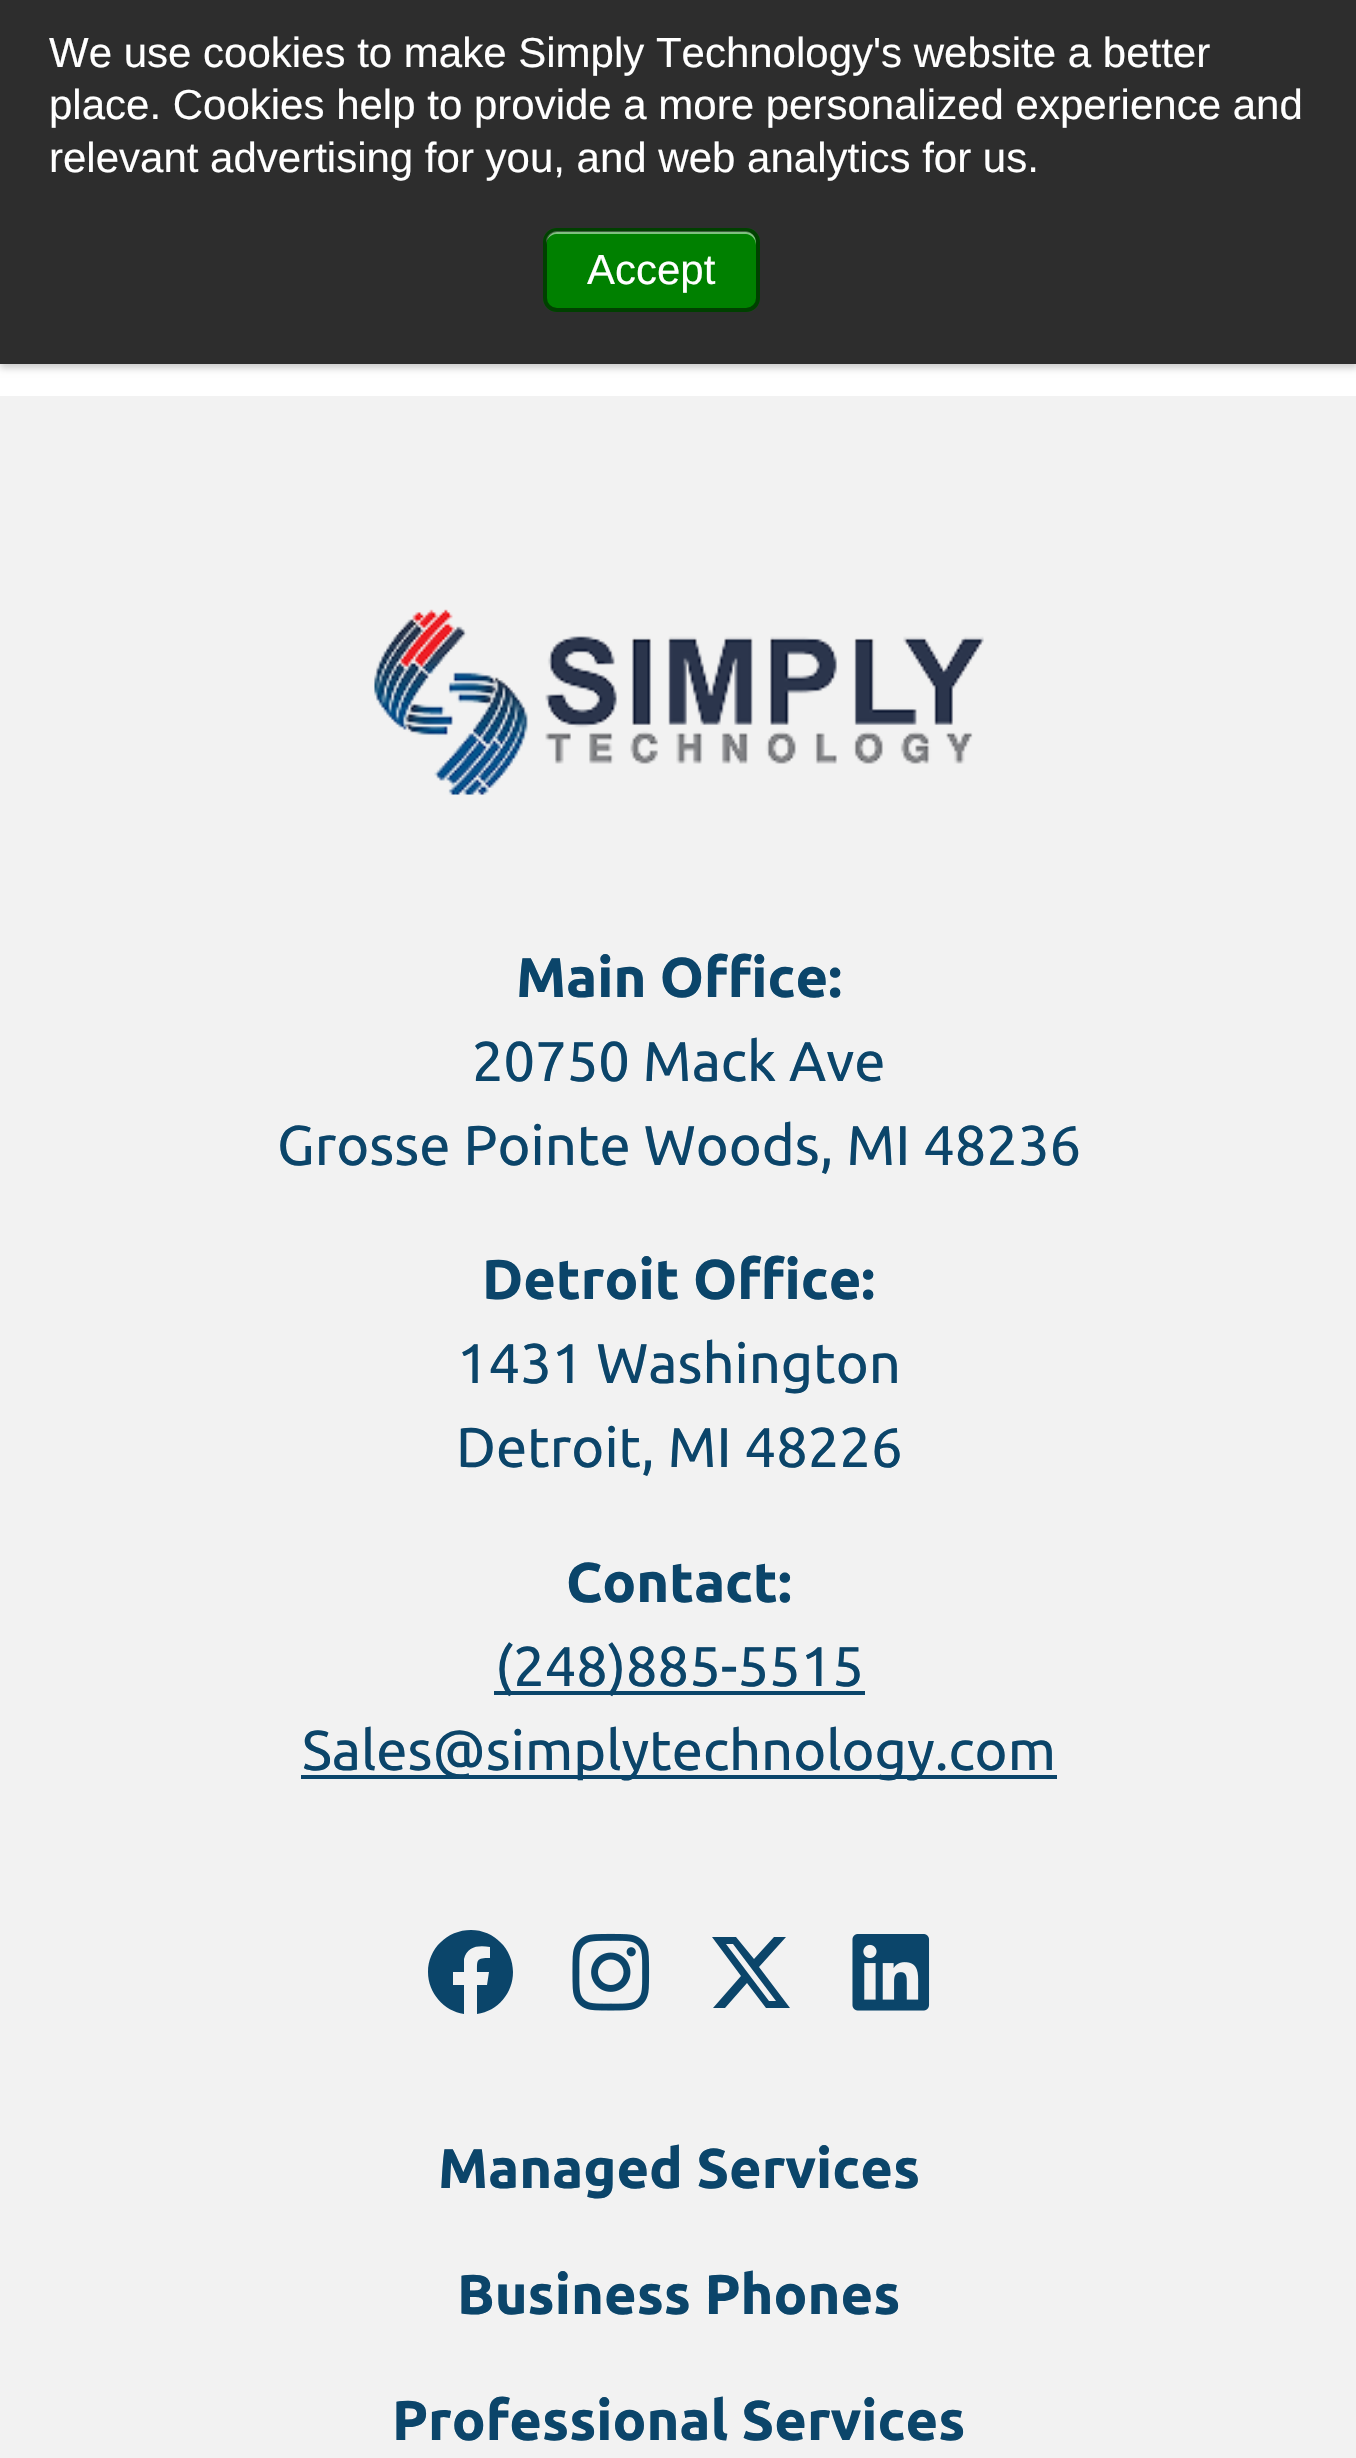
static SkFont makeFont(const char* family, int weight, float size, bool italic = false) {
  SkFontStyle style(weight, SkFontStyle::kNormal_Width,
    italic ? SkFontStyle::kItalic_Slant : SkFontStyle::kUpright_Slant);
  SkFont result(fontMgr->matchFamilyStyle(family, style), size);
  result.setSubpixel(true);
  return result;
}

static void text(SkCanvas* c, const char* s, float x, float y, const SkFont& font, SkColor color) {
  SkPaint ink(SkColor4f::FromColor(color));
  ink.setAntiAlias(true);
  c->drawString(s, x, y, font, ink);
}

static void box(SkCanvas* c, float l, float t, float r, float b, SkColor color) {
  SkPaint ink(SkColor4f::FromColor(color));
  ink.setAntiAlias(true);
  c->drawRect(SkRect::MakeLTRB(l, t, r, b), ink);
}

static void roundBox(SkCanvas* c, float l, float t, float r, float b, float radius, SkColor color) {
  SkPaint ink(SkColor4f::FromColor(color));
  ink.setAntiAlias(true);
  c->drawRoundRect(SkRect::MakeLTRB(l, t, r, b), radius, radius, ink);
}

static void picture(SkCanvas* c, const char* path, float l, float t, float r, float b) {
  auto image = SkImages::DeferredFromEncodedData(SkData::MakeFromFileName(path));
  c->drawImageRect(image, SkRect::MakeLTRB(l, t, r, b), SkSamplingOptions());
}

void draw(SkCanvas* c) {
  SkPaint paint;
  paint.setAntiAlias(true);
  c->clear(0xffffffff);
  paint.setColor(0x33000000);
  paint.setMaskFilter(SkMaskFilter::MakeBlur(kNormal_SkBlurStyle, 3.5f));
  c->drawRect(SkRect::MakeLTRB(0, 4, 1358, 368), paint);
  paint.setMaskFilter(nullptr);
  box(c, 0, 0, 1356, 364, 0xff2d2d2d);
  SkFont face1 = makeFont("Liberation Sans", 400, 42);
  text(c, "We use cookies to make Simply Technology's website a better", 49, 67, face1, 0xffffffff);
  text(c, "place. Cookies help to provide a more personalized experience and", 49, 119, face1, 0xffffffff);
  text(c, "relevant advertising for you, and web analytics for us.", 49, 172, face1, 0xffffffff);
  roundBox(c, 543, 228, 760, 312, 14, 0xff008000);
  paint.setColor(0xff80c080);
  c->drawPath(SkPathBuilder().moveTo(556, 234).lineTo(746, 234).cubicTo(751, 234, 756, 239, 756, 245).lineTo(756, 242).cubicTo(756, 236, 751, 231, 745, 231).lineTo(557, 231).cubicTo(551, 231, 546, 236, 546, 242).lineTo(546, 245).cubicTo(546, 239, 551, 234, 556, 234).close().detach(), paint);
  paint.setStyle(SkPaint::kStroke_Style);
  paint.setStrokeWidth(4);
  paint.setColor(0x80000000);
  c->drawRoundRect(SkRect::MakeLTRB(545, 230, 758, 310), 12, 12, paint);
  text(c, "Accept", 587, 284, face1, 0xffffffff);
  box(c, 0, 396, 1356, 2458, 0xfff2f2f2);
  picture(c, "img_01.png", 374, 609, 984, 795);
  SkFont face2 = makeFont("Ubuntu", 700, 56);
  text(c, "Main Office:", 516, 997, face2, 0xff0b456a);
  SkFont face3 = makeFont("Ubuntu", 400, 56);
  text(c, "20750 Mack Ave", 472, 1081, face3, 0xff0b456a);
  text(c, "Grosse Pointe Woods, MI 48236", 277, 1165, face3, 0xff0b456a);
  text(c, "Detroit Office:", 482, 1299, face2, 0xff0b456a);
  text(c, "1431 Washington", 457, 1383, face3, 0xff0b456a);
  text(c, "Detroit, MI 48226", 456, 1467, face3, 0xff0b456a);
  text(c, "Contact:", 566, 1602, face2, 0xff0b456a);
  box(c, 494, 1691, 865, 1695, 0xff0b456a);
  text(c, "(248)885-5515", 495, 1686, face3, 0xff0b456a);
  box(c, 301, 1775, 1057, 1779, 0xff0b456a);
  text(c, "Sales@simplytechnology.com", 302, 1770, face3, 0xff0b456a);
  paint.setStyle(SkPaint::kFill_Style);
  paint.setColor(0xff0b456a);
  c->drawPath(SkPathBuilder().moveTo(513, 1972).cubicTo(513, 1949, 494, 1930, 471, 1930).cubicTo(447, 1930, 428, 1949, 428, 1972).cubicTo(428, 1993, 444, 2011, 464, 2014).lineTo(464, 1985).lineTo(453, 1985).lineTo(453, 1972).lineTo(464, 1972).lineTo(464, 1959).cubicTo(467, 1946, 479, 1945, 490, 1947).lineTo(490, 1958).cubicTo(476, 1958, 477, 1960, 477, 1972).lineTo(489, 1972).lineTo(487, 1985).lineTo(477, 1985).lineTo(477, 2014).cubicTo(498, 2011, 513, 1993, 513, 1972).close().detach(), paint);
  picture(c, "img_02.png", 572, 1933, 650, 2011);
  c->drawPath(SkPathBuilder().moveTo(774, 1937).lineTo(786, 1937).lineTo(759, 1967).lineTo(790, 2008).lineTo(766, 2008).lineTo(747, 1983).lineTo(725, 2008).lineTo(713, 2008).lineTo(741, 1976).lineTo(712, 1937).lineTo(736, 1937).lineTo(754, 1959).close().moveTo(769, 2001).lineTo(776, 2001).lineTo(733, 1944).lineTo(726, 1944).close().detach(), paint);
  picture(c, "img_03.png", 852, 1934, 930, 2011);
  text(c, "Managed Services", 438, 2188, face2, 0xff0b456a);
  text(c, "Business Phones", 457, 2314, face2, 0xff0b456a);
  text(c, "Professional Services", 392, 2440, face2, 0xff0b456a);
}
